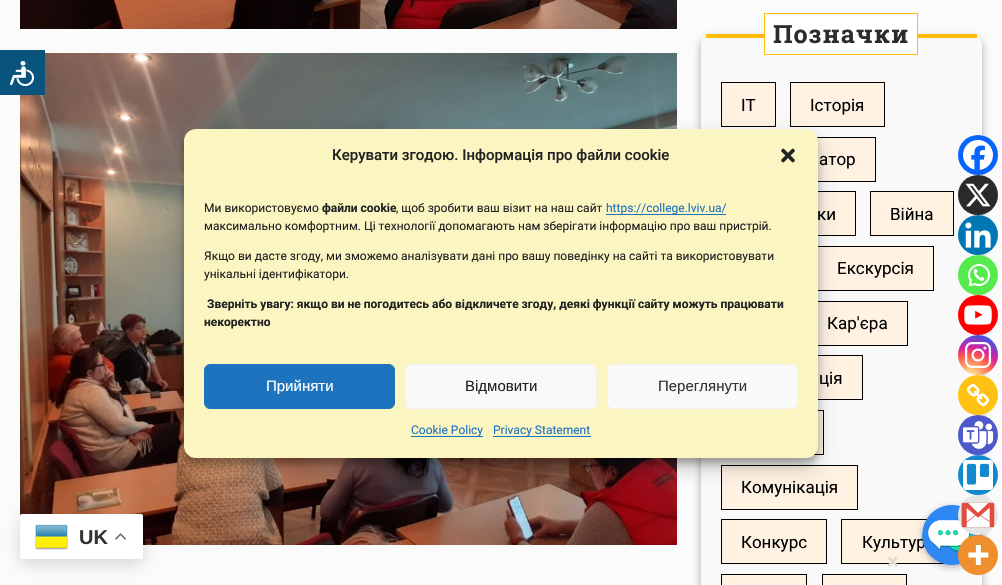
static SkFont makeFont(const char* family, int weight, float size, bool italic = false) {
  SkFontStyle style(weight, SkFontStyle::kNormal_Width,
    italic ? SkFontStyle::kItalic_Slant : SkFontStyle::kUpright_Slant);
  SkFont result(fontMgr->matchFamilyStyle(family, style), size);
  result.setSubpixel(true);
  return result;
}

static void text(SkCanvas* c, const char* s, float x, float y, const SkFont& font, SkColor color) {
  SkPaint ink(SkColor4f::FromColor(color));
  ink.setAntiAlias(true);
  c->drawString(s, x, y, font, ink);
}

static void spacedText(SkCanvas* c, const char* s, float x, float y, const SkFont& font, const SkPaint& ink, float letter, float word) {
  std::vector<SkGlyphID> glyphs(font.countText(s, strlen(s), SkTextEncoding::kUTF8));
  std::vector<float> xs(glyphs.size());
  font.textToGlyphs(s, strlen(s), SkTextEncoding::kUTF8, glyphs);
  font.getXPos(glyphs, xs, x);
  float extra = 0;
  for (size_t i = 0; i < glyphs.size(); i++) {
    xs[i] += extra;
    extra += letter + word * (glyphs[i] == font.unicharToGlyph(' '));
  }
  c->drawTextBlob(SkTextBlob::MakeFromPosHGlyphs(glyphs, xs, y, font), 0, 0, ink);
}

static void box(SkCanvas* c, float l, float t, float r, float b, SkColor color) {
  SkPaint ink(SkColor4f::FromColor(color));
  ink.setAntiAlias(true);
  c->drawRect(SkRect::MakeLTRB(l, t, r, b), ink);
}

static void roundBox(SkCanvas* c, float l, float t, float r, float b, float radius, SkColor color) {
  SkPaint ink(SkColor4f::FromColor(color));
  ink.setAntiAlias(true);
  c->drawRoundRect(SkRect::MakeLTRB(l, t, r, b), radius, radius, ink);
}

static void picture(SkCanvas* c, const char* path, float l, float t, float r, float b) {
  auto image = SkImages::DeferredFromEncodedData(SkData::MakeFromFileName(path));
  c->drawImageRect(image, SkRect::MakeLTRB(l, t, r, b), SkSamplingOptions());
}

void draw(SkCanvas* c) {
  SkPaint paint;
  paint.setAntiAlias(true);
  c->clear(0xfffbfbfb);
  picture(c, "img_03.png", 20, 53, 677, 545);
  box(c, 0, 50, 45, 95, 0xff09547c);
  picture(c, "img_01.png", 10, 61, 34, 86);
  picture(c, "img_02.png", 20, 0, 677, 29);
  paint.setColor(0xffa7aaad);
  paint.setMaskFilter(SkMaskFilter::MakeBlur(kNormal_SkBlurStyle, 4.5f));
  c->drawRoundRect(SkRect::MakeLTRB(701, 38, 982, 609), 10, 10, paint);
  paint.setMaskFilter(nullptr);
  roundBox(c, 701, 34, 982, 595, 10, 0xfff9f9f9);
  paint.setColor(0xff0765fe);
  c->drawCircle(978, 155, 20, paint);
  picture(c, "img_04.png", 963, 140, 993, 170);
  paint.setColor(0xff2a2a2a);
  c->drawCircle(978, 195, 20, paint);
  picture(c, "img_05.png", 965, 183, 991, 207);
  paint.setColor(0xff0077b5);
  c->drawCircle(978, 235, 20, paint);
  picture(c, "img_06.png", 965, 222, 991, 248);
  paint.setColor(0xff55eb4c);
  c->drawCircle(978, 275, 20, paint);
  picture(c, "img_07.png", 968, 264, 990, 287);
  paint.setColor(0xffff0000);
  c->drawCircle(978, 315, 20, paint);
  picture(c, "img_08.png", 964, 305, 992, 325);
  {
    const SkColor colors[] = {0xfffdf497, 0xfffdf497, 0xfffd5949, 0xffd6249f, 0xff285aeb};
    const float stops[] = {0, 0.05f, 0.45f, 0.6f, 0.9f};
    paint.setShader(SkGradientShader::MakeRadial({970, 378}, 51, colors, stops, 5, SkTileMode::kClamp));
    paint.setAlpha(255);
  }
  c->drawCircle(978, 355, 20, paint);
  picture(c, "img_09.png", 965, 342, 991, 368);
  paint.setShader(nullptr);
  paint.setColor(0xffffc112);
  c->drawCircle(978, 395, 20, paint);
  picture(c, "img_10.png", 967, 384, 989, 406);
  paint.setColor(0xff5059c9);
  c->drawCircle(978, 435, 20, paint);
  picture(c, "img_11.png", 963, 421, 993, 449);
  paint.setColor(0xff1189ce);
  c->drawCircle(978, 475, 20, paint);
  picture(c, "img_12.png", 963, 460, 993, 490);
  box(c, 842, 520, 941, 563, 0xfffff2e3);
  paint.setStyle(SkPaint::kStroke_Style);
  paint.setStrokeWidth(1);
  paint.setColor(0xff000000);
  c->drawRect(SkRect::MakeLTRB(841.5f, 519.5f, 954.5f, 563.5f), paint);
  paint.setStyle(SkPaint::kFill_Style);
  paint.setColor(0x4d000000);
  paint.setMaskFilter(SkMaskFilter::MakeBlur(kNormal_SkBlurStyle, 3));
  c->drawRoundRect(SkRect::MakeLTRB(922, 507, 982, 567), 30, 30, paint);
  paint.setMaskFilter(nullptr);
  SkFont face1 = makeFont("Roboto", 400, 17);
  text(c, "Культур", 862, 548, face1, 0xff000000);
  picture(c, "img_18.png", 922, 505, 982, 565);
  paint.setColor(0xffe5e5e5);
  c->drawCircle(978, 515, 20, paint);
  picture(c, "img_13.png", 961, 502, 995, 528);
  paint.setColor(0xffee8e2d);
  c->drawCircle(978, 555, 20, paint);
  picture(c, "img_14.png", 968, 545, 989, 565);
  box(c, 706, 34, 977, 38, 0xffffbd0a);
  paint.setColor(0xffffffff);
  c->drawRect(SkRect::MakeLTRB(764.5f, 13.5f, 917.5f, 54.5f), paint);
  paint.setStyle(SkPaint::kStroke_Style);
  paint.setColor(0xffffbd0a);
  c->drawRect(SkRect::MakeLTRB(764.5f, 13.5f, 917.5f, 54.5f), paint);
  SkFont face2 = makeFont("Roboto Slab", 700, 25);
  paint.setStyle(SkPaint::kFill_Style);
  paint.setColor(0xff2c2c2c);
  spacedText(c, "Позначки", 773, 43, face2, paint, 1, 0);
  paint.setColor(0xfffff2e3);
  c->drawRect(SkRect::MakeLTRB(721.5f, 82.5f, 775.5f, 126.5f), paint);
  paint.setStyle(SkPaint::kStroke_Style);
  paint.setColor(0xff000000);
  c->drawRect(SkRect::MakeLTRB(721.5f, 82.5f, 775.5f, 126.5f), paint);
  text(c, "ІТ", 741, 111, face1, 0xff000000);
  paint.setStyle(SkPaint::kFill_Style);
  paint.setColor(0xfffff2e3);
  c->drawRect(SkRect::MakeLTRB(790.5f, 82.5f, 884.5f, 126.5f), paint);
  paint.setStyle(SkPaint::kStroke_Style);
  paint.setColor(0xff000000);
  c->drawRect(SkRect::MakeLTRB(790.5f, 82.5f, 884.5f, 126.5f), paint);
  text(c, "Історія", 810, 111, face1, 0xff000000);
  box(c, 817, 138, 875, 181, 0xfffff2e3);
  c->drawRect(SkRect::MakeLTRB(721.5f, 137.5f, 875.5f, 181.5f), paint);
  text(c, "атор", 819, 165, face1, 0xff000000);
  box(c, 818, 192, 855, 235, 0xfffff2e3);
  c->drawRect(SkRect::MakeLTRB(721.5f, 191.5f, 855.5f, 235.5f), paint);
  text(c, "ки", 817, 220, face1, 0xff000000);
  paint.setStyle(SkPaint::kFill_Style);
  paint.setColor(0xfffff2e3);
  c->drawRect(SkRect::MakeLTRB(870.5f, 191.5f, 953.5f, 235.5f), paint);
  paint.setStyle(SkPaint::kStroke_Style);
  paint.setColor(0xff000000);
  c->drawRect(SkRect::MakeLTRB(870.5f, 191.5f, 953.5f, 235.5f), paint);
  text(c, "Війна", 890, 220, face1, 0xff000000);
  paint.setStyle(SkPaint::kFill_Style);
  paint.setColor(0xfffff2e3);
  c->drawRect(SkRect::MakeLTRB(817.5f, 246.5f, 933.5f, 290.5f), paint);
  paint.setStyle(SkPaint::kStroke_Style);
  paint.setColor(0xff000000);
  c->drawRect(SkRect::MakeLTRB(817.5f, 246.5f, 933.5f, 290.5f), paint);
  text(c, "Екскурсія", 837, 274, face1, 0xff000000);
  box(c, 818, 302, 907, 345, 0xfffff2e3);
  c->drawRect(SkRect::MakeLTRB(807.5f, 301.5f, 907.5f, 345.5f), paint);
  text(c, "Кар'єра", 827, 329, face1, 0xff000000);
  box(c, 818, 356, 862, 399, 0xfffff2e3);
  c->drawRect(SkRect::MakeLTRB(721.5f, 355.5f, 862.5f, 399.5f), paint);
  text(c, "ція", 819, 384, face1, 0xff000000);
  box(c, 814, 411, 823, 454, 0xfffff2e3);
  c->drawRect(SkRect::MakeLTRB(721.5f, 410.5f, 823.5f, 454.5f), paint);
  paint.setStyle(SkPaint::kFill_Style);
  paint.setColor(0xfffff2e3);
  c->drawRect(SkRect::MakeLTRB(721.5f, 465.5f, 857.5f, 509.5f), paint);
  paint.setStyle(SkPaint::kStroke_Style);
  paint.setColor(0xff000000);
  c->drawRect(SkRect::MakeLTRB(721.5f, 465.5f, 857.5f, 509.5f), paint);
  text(c, "Комунікація", 741, 493, face1, 0xff000000);
  paint.setStyle(SkPaint::kFill_Style);
  paint.setColor(0xfffff2e3);
  c->drawRect(SkRect::MakeLTRB(721.5f, 519.5f, 826.5f, 563.5f), paint);
  paint.setStyle(SkPaint::kStroke_Style);
  paint.setColor(0xff000000);
  c->drawRect(SkRect::MakeLTRB(721.5f, 519.5f, 826.5f, 563.5f), paint);
  text(c, "Конкурс", 741, 548, face1, 0xff000000);
  paint.setStyle(SkPaint::kFill_Style);
  paint.setColor(0xfffff2e3);
  c->drawRect(SkRect::MakeLTRB(721.5f, 574.5f, 806.5f, 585.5f), paint);
  paint.setStyle(SkPaint::kStroke_Style);
  paint.setColor(0xff000000);
  c->drawRect(SkRect::MakeLTRB(721.5f, 574.5f, 806.5f, 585.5f), paint);
  paint.setStyle(SkPaint::kFill_Style);
  paint.setColor(0xfffff2e3);
  c->drawRect(SkRect::MakeLTRB(822.5f, 574.5f, 906.5f, 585.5f), paint);
  paint.setStyle(SkPaint::kStroke_Style);
  paint.setColor(0xff000000);
  c->drawRect(SkRect::MakeLTRB(822.5f, 574.5f, 906.5f, 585.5f), paint);
  paint.setStyle(SkPaint::kFill_Style);
  paint.setColor(0x3b000000);
  paint.setMaskFilter(SkMaskFilter::MakeBlur(kNormal_SkBlurStyle, 3));
  c->drawRoundRect(SkRect::MakeLTRB(184, 135, 818, 464), 12, 12, paint);
  paint.setMaskFilter(nullptr);
  paint.setColor(0x30000000);
  paint.setMaskFilter(SkMaskFilter::MakeBlur(kNormal_SkBlurStyle, 10));
  c->drawRoundRect(SkRect::MakeLTRB(184, 139, 818, 468), 12, 12, paint);
  paint.setMaskFilter(nullptr);
  roundBox(c, 184, 129, 818, 458, 12, 0xfffbf5c2);
  SkFont face3 = makeFont("Roboto", 500, 15);
  text(c, "Керувати згодою. Інформація про файли cookie", 332, 160, face3, 0xff222222);
  picture(c, "img_15.png", 781, 148, 795, 163);
  SkFont face4 = makeFont("Roboto", 400, 12);
  text(c, "Ми використовуємо", 204, 212, face4, 0xff222222);
  SkFont face5 = makeFont("Roboto", 700, 12);
  text(c, "файли cookie", 322, 212, face5, 0xff222222);
  text(c, ", щоб зробити ваш візит на наш сайт", 396, 212, face4, 0xff222222);
  box(c, 606, 214, 726, 215, 0xff1e73be);
  text(c, "https://college.lviv.ua/", 606, 212, face4, 0xff1e73be);
  text(c, "максимально комфортним. Ці технології допомагають нам зберігати інформацію про ваш пристрій.", 204, 230, face4, 0xff222222);
  text(c, "Якщо ви дасте згоду, ми зможемо аналізувати дані про вашу поведінку на сайті та використовувати", 204, 260, face4, 0xff222222);
  text(c, "унікальні ідентифікатори.", 204, 278, face4, 0xff222222);
  text(c, "Зверніть увагу: якщо ви не погодитесь або відкличете згоду, деякі функції сайту можуть працювати", 207, 308, face5, 0xff222222);
  text(c, "некоректно", 204, 326, face5, 0xff222222);
  paint.setColor(0xff1e73be);
  c->drawRoundRect(SkRect::MakeLTRB(204.5f, 364.5f, 394.5f, 408.5f), 5.5f, 5.5f, paint);
  paint.setStyle(SkPaint::kStroke_Style);
  c->drawRoundRect(SkRect::MakeLTRB(204.5f, 364.5f, 394.5f, 408.5f), 5.5f, 5.5f, paint);
  SkFont face6 = makeFont("Liberation Sans", 400, 15);
  text(c, "Прийняти", 266, 391, face6, 0xffffffff);
  paint.setStyle(SkPaint::kFill_Style);
  paint.setColor(0xfff9f9f9);
  c->drawRoundRect(SkRect::MakeLTRB(405.5f, 364.5f, 596.5f, 408.5f), 5.5f, 5.5f, paint);
  paint.setStyle(SkPaint::kStroke_Style);
  paint.setColor(0xfff2f2f2);
  c->drawRoundRect(SkRect::MakeLTRB(405.5f, 364.5f, 596.5f, 408.5f), 5.5f, 5.5f, paint);
  text(c, "Відмовити", 465, 391, face6, 0xff222222);
  paint.setStyle(SkPaint::kFill_Style);
  paint.setColor(0xfff9f9f9);
  c->drawRoundRect(SkRect::MakeLTRB(607.5f, 364.5f, 797.5f, 408.5f), 5.5f, 5.5f, paint);
  paint.setStyle(SkPaint::kStroke_Style);
  paint.setColor(0xfff2f2f2);
  c->drawRoundRect(SkRect::MakeLTRB(607.5f, 364.5f, 797.5f, 408.5f), 5.5f, 5.5f, paint);
  text(c, "Переглянути", 658, 391, face6, 0xff333333);
  box(c, 411, 436, 483, 437, 0xff1e73be);
  text(c, "Cookie Policy", 411, 434, face4, 0xff1e73be);
  box(c, 493, 436, 591, 437, 0xff1e73be);
  text(c, "Privacy Statement", 493, 434, face4, 0xff1e73be);
  paint.setStyle(SkPaint::kFill_Style);
  paint.setColor(0x26000000);
  paint.setMaskFilter(SkMaskFilter::MakeBlur(kNormal_SkBlurStyle, 7.5f));
  c->drawRoundRect(SkRect::MakeLTRB(20, 519, 143, 564), 2, 2, paint);
  paint.setMaskFilter(nullptr);
  roundBox(c, 20, 514, 143, 559, 2, 0xffffffff);
  picture(c, "img_16.png", 35, 524, 68, 550);
  SkFont face7 = makeFont("Liberation Sans", 700, 20);
  text(c, "UK", 79, 544, face7, 0xff333333);
  picture(c, "img_17.png", 115, 533, 126, 540);
  SkFont face8 = makeFont("Roboto", 700, 22);
  text(c, "×", 887, 569, face8, 0xffe4dcd3);
}
